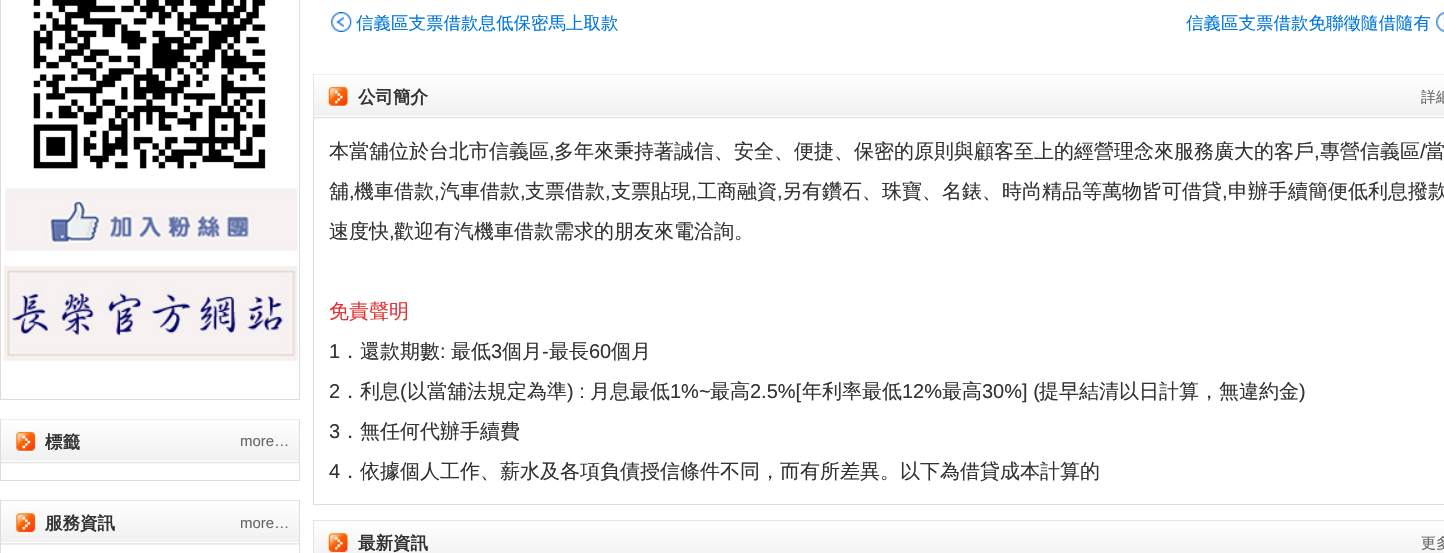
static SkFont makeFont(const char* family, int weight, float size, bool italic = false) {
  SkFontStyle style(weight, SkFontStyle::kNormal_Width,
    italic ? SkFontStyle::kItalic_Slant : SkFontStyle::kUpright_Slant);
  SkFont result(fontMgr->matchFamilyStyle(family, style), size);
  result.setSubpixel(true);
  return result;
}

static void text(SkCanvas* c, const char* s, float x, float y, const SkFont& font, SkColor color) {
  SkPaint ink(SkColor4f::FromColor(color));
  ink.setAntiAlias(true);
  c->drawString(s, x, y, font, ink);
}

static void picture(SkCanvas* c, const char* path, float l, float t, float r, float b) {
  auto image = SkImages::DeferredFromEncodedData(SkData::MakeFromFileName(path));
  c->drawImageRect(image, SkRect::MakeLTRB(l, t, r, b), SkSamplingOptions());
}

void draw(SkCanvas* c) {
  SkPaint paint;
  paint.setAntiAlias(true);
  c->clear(0xffffffff);
  paint.setStyle(SkPaint::kStroke_Style);
  paint.setStrokeWidth(1);
  paint.setColor(0xffdddddd);
  c->drawRect(SkRect::MakeLTRB(0.5f, -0.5f, 299.5f, 399.5f), paint);
  picture(c, "img_01.png", 33, 0, 266, 169);
  picture(c, "img_02.png", 5, 188, 298, 251);
  picture(c, "img_03.png", 3, 265, 298, 361);
  c->drawRect(SkRect::MakeLTRB(0.5f, 419.5f, 299.5f, 480.5f), paint);
  picture(c, "img_04.png", 1, 419, 299, 464);
  SkFont face1 = makeFont("WenQuanYi Zen Hei", 700, 17.5f);
  text(c, "標籤", 45, 448, face1, 0xff333333);
  SkFont face2 = makeFont("Liberation Sans", 400, 15);
  text(c, "more…", 240, 446, face2, 0xff666666);
  c->drawRect(SkRect::MakeLTRB(0.5f, 500.5f, 299.5f, 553.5f), paint);
  picture(c, "img_05.png", 1, 500, 299, 545);
  text(c, "服務資訊", 45, 529, face1, 0xff333333);
  text(c, "more…", 240, 528, face2, 0xff666666);
  picture(c, "img_06.png", 331, 12, 352, 32);
  SkFont face3 = makeFont("WenQuanYi Zen Hei", 500, 17.5f);
  text(c, "信義區支票借款息低保密馬上取款", 356, 29, face3, 0xff0077dd);
  text(c, "信義區支票借款免聯徵隨借隨有", 1186, 29, face3, 0xff0077dd);
  picture(c, "img_07.png", 1436, 12, 1444, 32);
  c->drawRect(SkRect::MakeLTRB(313.5f, 74.5f, 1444.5f, 504.5f), paint);
  picture(c, "img_08.png", 313, 74, 1444, 119);
  text(c, "公司簡介", 358, 103, face1, 0xff333333);
  SkFont face4 = makeFont("WenQuanYi Zen Hei", 500, 15);
  text(c, "詳細", 1421, 102, face4, 0xff666666);
  SkFont face5 = makeFont("WenQuanYi Zen Hei", 500, 20);
  text(c, "本當舖位於台北市信義區", 329, 158, face5, 0xff333333);
  SkFont face6 = makeFont("Liberation Sans", 400, 20);
  text(c, ",", 549, 158, face6, 0xff333333);
  text(c, "多年來秉持著誠信、安全、便捷、保密的原則與顧客至上的經營理念來服務廣大的客戶", 554, 158, face5, 0xff333333);
  text(c, ",", 1314, 158, face6, 0xff333333);
  text(c, "專營信義區", 1320, 158, face5, 0xff333333);
  text(c, "/", 1420, 158, face6, 0xff333333);
  text(c, "當", 1425, 158, face5, 0xff333333);
  text(c, "舖", 329, 198, face5, 0xff333333);
  text(c, ",", 349, 198, face6, 0xff333333);
  text(c, "機車借款", 354, 198, face5, 0xff333333);
  text(c, ",", 434, 198, face6, 0xff333333);
  text(c, "汽車借款", 440, 198, face5, 0xff333333);
  text(c, ",", 520, 198, face6, 0xff333333);
  text(c, "支票借款", 525, 198, face5, 0xff333333);
  text(c, ",", 605, 198, face6, 0xff333333);
  text(c, "支票貼現", 611, 198, face5, 0xff333333);
  text(c, ",", 691, 198, face6, 0xff333333);
  text(c, "工商融資", 697, 198, face5, 0xff333333);
  text(c, ",", 777, 198, face6, 0xff333333);
  text(c, "另有鑽石、珠寶、名錶、時尚精品等萬物皆可借貸", 782, 198, face5, 0xff333333);
  text(c, ",", 1222, 198, face6, 0xff333333);
  text(c, "申辦手續簡便低利息撥款", 1228, 198, face5, 0xff333333);
  text(c, "速度快", 329, 238, face5, 0xff333333);
  text(c, ",", 389, 238, face6, 0xff333333);
  text(c, "歡迎有汽機車借款需求的朋友來電洽詢。", 394, 238, face5, 0xff333333);
  text(c, "免責聲明", 329, 318, face5, 0xffe53333);
  text(c, "1", 329, 358, face6, 0xff333333);
  text(c, "．還款期數", 340, 358, face5, 0xff333333);
  text(c, ":", 440, 358, face6, 0xff333333);
  text(c, "最低", 451, 358, face5, 0xff333333);
  text(c, "3", 491, 358, face6, 0xff333333);
  text(c, "個月", 502, 358, face5, 0xff333333);
  text(c, "-", 542, 358, face6, 0xff333333);
  text(c, "最長", 549, 358, face5, 0xff333333);
  text(c, "60", 589, 358, face6, 0xff333333);
  text(c, "個月", 611, 358, face5, 0xff333333);
  text(c, "2", 329, 398, face6, 0xff333333);
  text(c, "．利息", 340, 398, face5, 0xff333333);
  text(c, "(", 400, 398, face6, 0xff333333);
  text(c, "以當舖法規定為準", 407, 398, face5, 0xff333333);
  text(c, ") :", 567, 398, face6, 0xff333333);
  text(c, "月息最低", 590, 398, face5, 0xff333333);
  text(c, "1%~", 670, 398, face6, 0xff333333);
  text(c, "最高", 710, 398, face5, 0xff333333);
  text(c, "2.5%[", 750, 398, face6, 0xff333333);
  text(c, "年利率最低", 802, 398, face5, 0xff333333);
  text(c, "12%", 902, 398, face6, 0xff333333);
  text(c, "最高", 942, 398, face5, 0xff333333);
  text(c, "30%] (", 982, 398, face6, 0xff333333);
  text(c, "提早結清以日計算，無違約金", 1039, 398, face5, 0xff333333);
  text(c, ")", 1299, 398, face6, 0xff333333);
  text(c, "3", 329, 438, face6, 0xff333333);
  text(c, "．無任何代辦手續費", 340, 438, face5, 0xff333333);
  text(c, "4", 329, 478, face6, 0xff333333);
  text(c, "．依據個人工作、薪水及各項負債授信條件不同，而有所差異。以下為借貸成本計算的", 340, 478, face5, 0xff333333);
  c->drawRect(SkRect::MakeLTRB(313.5f, 520.5f, 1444.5f, 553.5f), paint);
  picture(c, "img_09.png", 313, 520, 1444, 553);
  text(c, "最新資訊", 358, 549, face1, 0xff333333);
  text(c, "更多", 1421, 548, face4, 0xff666666);
}
